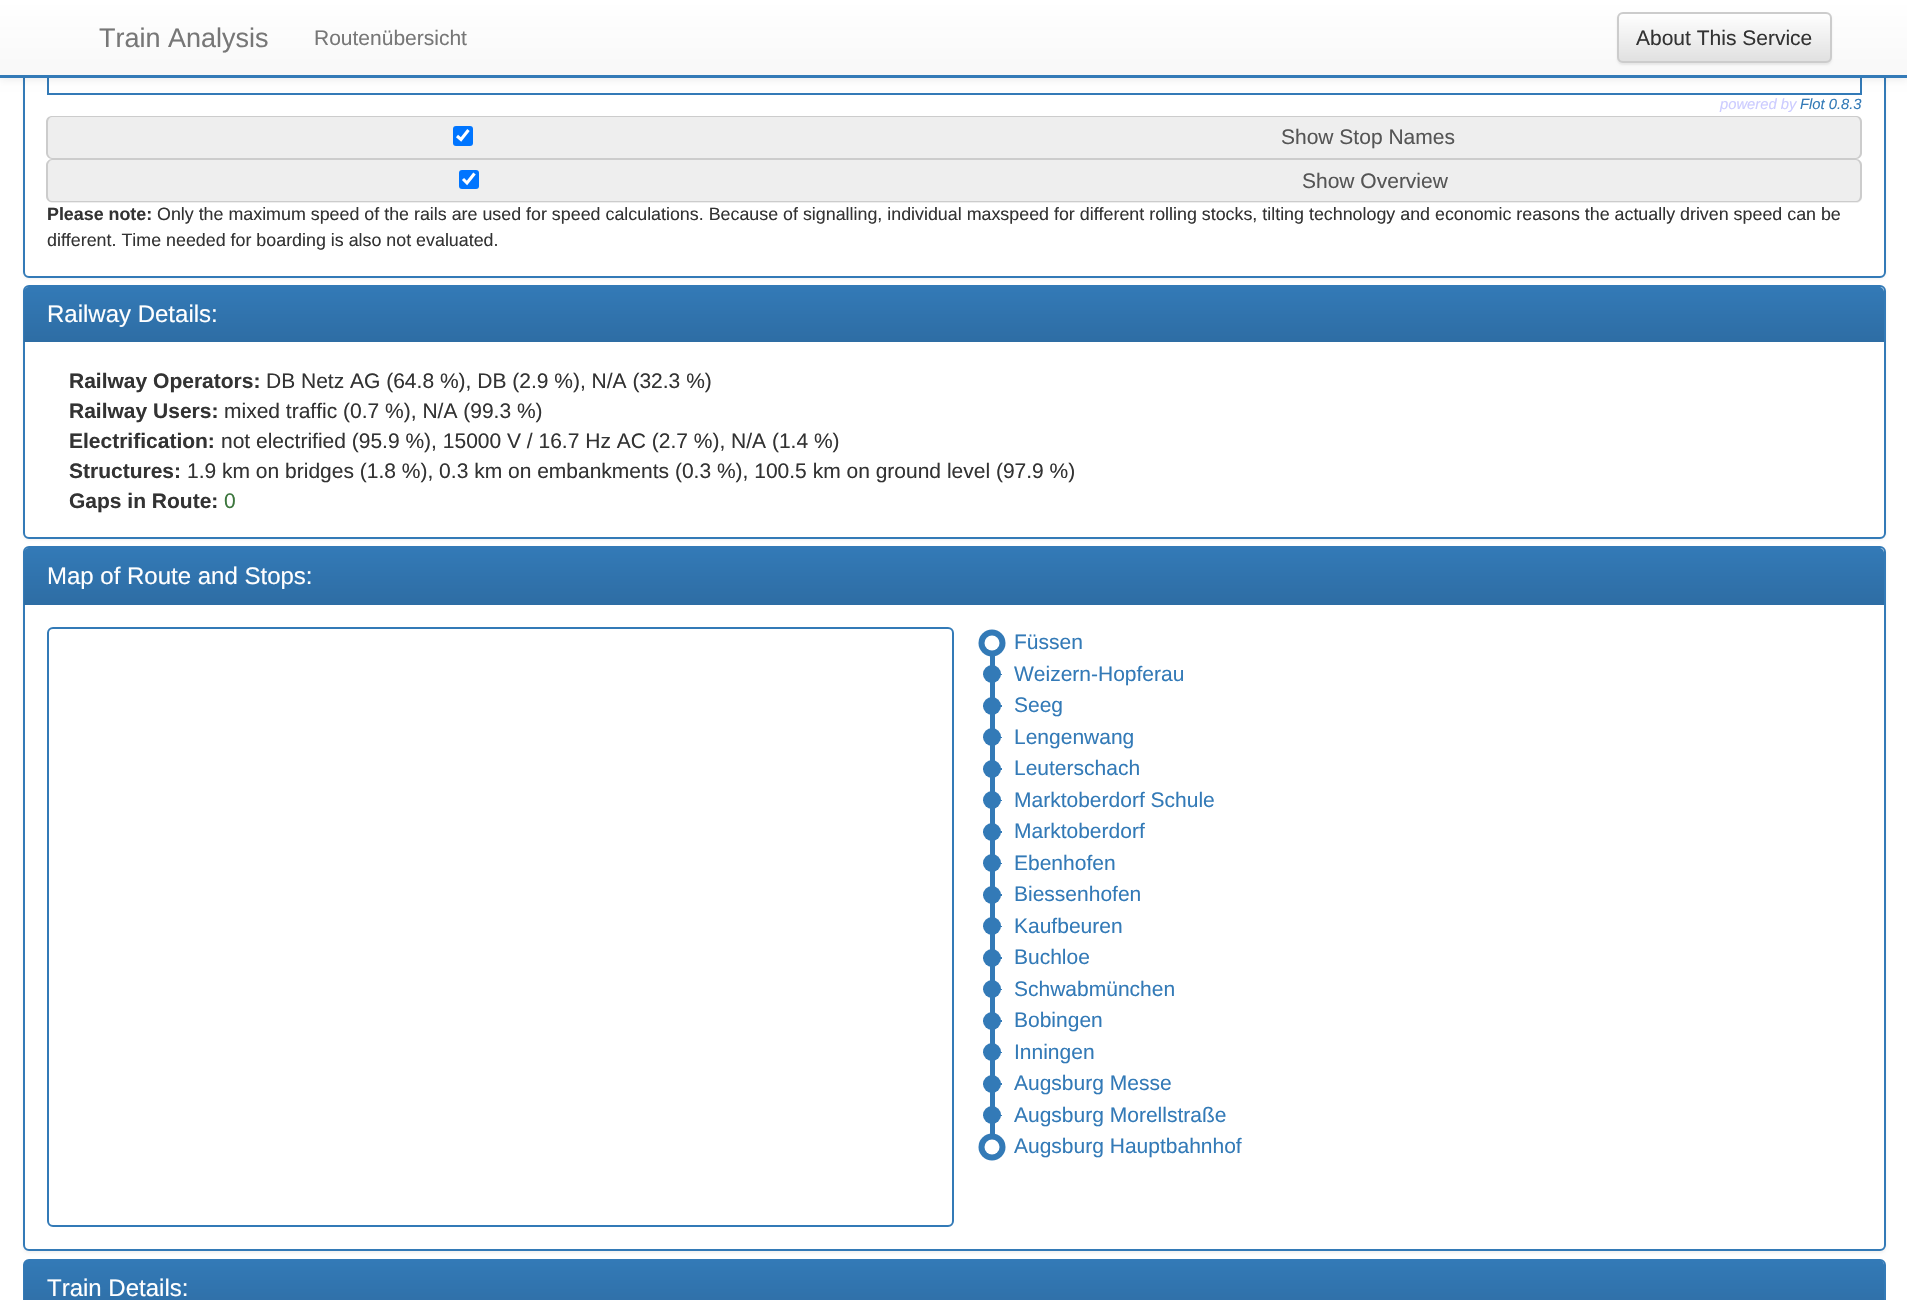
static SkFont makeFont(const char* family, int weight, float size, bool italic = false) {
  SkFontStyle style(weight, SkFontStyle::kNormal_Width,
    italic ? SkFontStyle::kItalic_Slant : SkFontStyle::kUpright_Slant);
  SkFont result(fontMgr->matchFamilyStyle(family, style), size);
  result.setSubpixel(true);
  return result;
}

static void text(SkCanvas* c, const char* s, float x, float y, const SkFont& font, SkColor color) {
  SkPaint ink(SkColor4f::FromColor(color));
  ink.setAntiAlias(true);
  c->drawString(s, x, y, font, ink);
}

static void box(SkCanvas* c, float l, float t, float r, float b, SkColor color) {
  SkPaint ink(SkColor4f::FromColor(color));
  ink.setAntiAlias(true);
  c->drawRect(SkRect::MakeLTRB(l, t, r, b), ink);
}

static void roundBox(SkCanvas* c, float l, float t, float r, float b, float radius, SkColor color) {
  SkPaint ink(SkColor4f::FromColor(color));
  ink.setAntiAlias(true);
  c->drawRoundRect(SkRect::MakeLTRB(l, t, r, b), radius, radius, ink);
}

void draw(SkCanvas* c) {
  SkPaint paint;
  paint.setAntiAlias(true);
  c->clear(0xffffffff);
  paint.setColor(0x0d000000);
  paint.setMaskFilter(SkMaskFilter::MakeBlur(kNormal_SkBlurStyle, 1.5f));
  c->drawRoundRect(SkRect::MakeLTRB(23, -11, 1886, 279), 6, 6, paint);
  paint.setMaskFilter(nullptr);
  paint.setColor(0xffffffff);
  c->drawRoundRect(SkRect::MakeLTRB(24, -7, 1885, 277), 5, 5, paint);
  paint.setStyle(SkPaint::kStroke_Style);
  paint.setStrokeWidth(2);
  paint.setColor(0xff337ab7);
  c->drawRoundRect(SkRect::MakeLTRB(24, -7, 1885, 277), 5, 5, paint);
  c->drawRect(SkRect::MakeLTRB(48, -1, 1861, 94), paint);
  paint.setStyle(SkPaint::kFill_Style);
  paint.setColor(0x12000000);
  paint.setMaskFilter(SkMaskFilter::MakeBlur(kNormal_SkBlurStyle, 4));
  c->drawRect(SkRect::MakeLTRB(0, 2, 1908, 80), paint);
  paint.setMaskFilter(nullptr);
  {
    const SkColor colors[] = {0xffffffff, 0xfff8f8f8};
    const float stops[] = {0, 1};
    const SkPoint ends[] = {{954, 0}, {954, 75}};
    paint.setShader(SkGradientShader::MakeLinear(ends, colors, stops, 2, SkTileMode::kClamp));
    paint.setAlpha(255);
  }
  c->drawRect(SkRect::MakeLTRB(0, 0, 1907, 75), paint);
  box(c, 0, 75, 1907, 78, 0xff337ab7);
  SkFont face1 = makeFont("Liberation Sans", 400, 27);
  text(c, "Train Analysis", 99, 47, face1, 0xff777777);
  SkFont face2 = makeFont("Liberation Sans", 400, 21);
  text(c, "Routenübersicht", 314, 45, face2, 0xff777777);
  paint.setShader(nullptr);
  paint.setColor(0x12000000);
  paint.setMaskFilter(SkMaskFilter::MakeBlur(kNormal_SkBlurStyle, 1));
  c->drawRoundRect(SkRect::MakeLTRB(1617, 14, 1832, 65), 6, 6, paint);
  paint.setMaskFilter(nullptr);
  c->save();
  c->clipPath(SkPathBuilder().moveTo(1623, 12).lineTo(1826, 12).cubicTo(1829.5f, 12, 1832, 14.5f, 1832, 18).lineTo(1832, 57).cubicTo(1832, 60.5f, 1829.5f, 63, 1826, 63).lineTo(1623, 63).cubicTo(1619.5f, 63, 1617, 60.5f, 1617, 57).lineTo(1617, 18).cubicTo(1617, 14.5f, 1619.5f, 12, 1623, 12).close().detach(), true);
  {
    const SkColor colors[] = {0xffffffff, 0xffe0e0e0};
    const float stops[] = {0, 1};
    const SkPoint ends[] = {{1724, 13}, {1724, 62}};
    paint.setShader(SkGradientShader::MakeLinear(ends, colors, stops, 2, SkTileMode::kClamp));
    paint.setAlpha(255);
  }
  c->drawRect(SkRect::MakeLTRB(1617, 14, 1832, 62), paint);
  c->restore();
  paint.setStyle(SkPaint::kStroke_Style);
  paint.setShader(nullptr);
  paint.setColor(0xffcccccc);
  c->drawRoundRect(SkRect::MakeLTRB(1618, 13, 1831, 62), 5, 5, paint);
  text(c, "About This Service", 1636, 45, face2, 0xff333333);
  SkFont face3 = makeFont("Liberation Sans", 400, 14.75f, true);
  text(c, "powered by", 1720, 109, face3, 0xffccccff);
  text(c, "Flot 0.8.3", 1800, 109, face3, 0xff337ab7);
  paint.setStyle(SkPaint::kFill_Style);
  paint.setColor(0xffeeeeee);
  c->drawPath(SkPathBuilder().moveTo(53, 116).lineTo(878, 116).lineTo(878, 159).lineTo(53, 159).cubicTo(49.5f, 159, 47, 156.5f, 47, 153).lineTo(47, 122).cubicTo(47, 118.5f, 49.5f, 116, 53, 116).close().detach(), paint);
  paint.setColor(0xffcccccc);
  c->drawPath(SkPathBuilder(SkPathFillType::kEvenOdd).moveTo(52, 116).lineTo(878, 116).lineTo(878, 159).lineTo(52, 159).cubicTo(49, 159, 46, 156, 46, 153).lineTo(46, 122).cubicTo(46, 118, 49, 116, 52, 116).close().moveTo(52, 117).lineTo(878, 117).lineTo(878, 158).lineTo(52, 158).cubicTo(50, 158, 48, 155, 48, 153).lineTo(48, 122).cubicTo(48, 119, 50, 117, 52, 117).close().detach(), paint);
  roundBox(c, 453, 126, 473, 146, 3, 0xff0075ff);
  paint.setStyle(SkPaint::kStroke_Style);
  paint.setStrokeWidth(3.1f);
  paint.setColor(0xffffffff);
  c->drawPath(SkPathBuilder().moveTo(457, 136).lineTo(461, 139.5f).lineTo(468.5f, 130).detach(), paint);
  paint.setStyle(SkPaint::kFill_Style);
  paint.setColor(0xffeeeeee);
  c->drawPath(SkPathBuilder().moveTo(878, 116).lineTo(1856, 116).cubicTo(1859.5f, 116, 1862, 118.5f, 1862, 122).lineTo(1862, 153).cubicTo(1862, 156.5f, 1859.5f, 159, 1856, 159).lineTo(878, 159).close().detach(), paint);
  paint.setColor(0xffcccccc);
  c->drawPath(SkPathBuilder(SkPathFillType::kEvenOdd).moveTo(878, 116).lineTo(1856, 116).cubicTo(1859, 116, 1862, 118, 1862, 122).lineTo(1862, 153).cubicTo(1862, 156, 1859, 159, 1856, 159).lineTo(878, 159).close().moveTo(878, 117).lineTo(1856, 117).cubicTo(1858, 117, 1860, 119, 1860, 122).lineTo(1860, 153).cubicTo(1860, 155, 1858, 158, 1856, 158).lineTo(878, 158).close().detach(), paint);
  text(c, "Show Stop Names", 1281, 144, face2, 0xff555555);
  paint.setColor(0xffeeeeee);
  c->drawPath(SkPathBuilder().moveTo(53, 159).lineTo(891, 159).lineTo(891, 203).lineTo(53, 203).cubicTo(49.5f, 203, 47, 200.5f, 47, 197).lineTo(47, 165).cubicTo(47, 161.5f, 49.5f, 159, 53, 159).close().detach(), paint);
  paint.setColor(0xffcccccc);
  c->drawPath(SkPathBuilder(SkPathFillType::kEvenOdd).moveTo(52, 159).lineTo(891, 159).lineTo(891, 202).lineTo(52, 202).cubicTo(49, 202, 46, 200, 46, 196).lineTo(46, 165).cubicTo(46, 162, 49, 159, 52, 159).close().moveTo(52, 160).lineTo(891, 160).lineTo(891, 201).lineTo(52, 201).cubicTo(50, 201, 48, 199, 48, 196).lineTo(48, 165).cubicTo(48, 163, 50, 160, 52, 160).close().detach(), paint);
  roundBox(c, 459, 170, 479, 189, 3, 0xff0075ff);
  paint.setStyle(SkPaint::kStroke_Style);
  paint.setColor(0xffffffff);
  c->drawPath(SkPathBuilder().moveTo(463, 179).lineTo(467, 183).lineTo(474.5f, 173.5f).detach(), paint);
  paint.setStyle(SkPaint::kFill_Style);
  paint.setColor(0xffeeeeee);
  c->drawPath(SkPathBuilder().moveTo(891, 159).lineTo(1856, 159).cubicTo(1859.5f, 159, 1862, 161.5f, 1862, 165).lineTo(1862, 197).cubicTo(1862, 200.5f, 1859.5f, 203, 1856, 203).lineTo(891, 203).close().detach(), paint);
  paint.setColor(0xffcccccc);
  c->drawPath(SkPathBuilder(SkPathFillType::kEvenOdd).moveTo(891, 159).lineTo(1856, 159).cubicTo(1859, 159, 1862, 162, 1862, 165).lineTo(1862, 196).cubicTo(1862, 200, 1859, 202, 1856, 202).lineTo(891, 202).close().moveTo(891, 160).lineTo(1856, 160).cubicTo(1858, 160, 1860, 163, 1860, 165).lineTo(1860, 196).cubicTo(1860, 199, 1858, 201, 1856, 201).lineTo(891, 201).close().detach(), paint);
  text(c, "Show Overview", 1302, 188, face2, 0xff555555);
  SkFont face4 = makeFont("Liberation Sans", 700, 17.85f);
  text(c, "Please note:", 47, 220, face4, 0xff333333);
  SkFont face5 = makeFont("Liberation Sans", 400, 17.85f);
  text(c, "Only the maximum speed of the rails are used for speed calculations. Because of signalling, individual maxspeed for different rolling stocks, tilting technology and economic reasons the actually driven speed can be", 157, 220, face5, 0xff333333);
  text(c, "different. Time needed for boarding is also not evaluated.", 47, 246, face5, 0xff333333);
  paint.setColor(0x0d000000);
  paint.setMaskFilter(SkMaskFilter::MakeBlur(kNormal_SkBlurStyle, 1.5f));
  c->drawRoundRect(SkRect::MakeLTRB(23, 287, 1886, 540), 6, 6, paint);
  paint.setMaskFilter(nullptr);
  paint.setColor(0xffffffff);
  c->drawRoundRect(SkRect::MakeLTRB(24, 286, 1885, 538), 5, 5, paint);
  paint.setStyle(SkPaint::kStroke_Style);
  paint.setStrokeWidth(2);
  paint.setColor(0xff337ab7);
  c->drawRoundRect(SkRect::MakeLTRB(24, 286, 1885, 538), 5, 5, paint);
  paint.setStyle(SkPaint::kFill_Style);
  {
    const SkColor colors[] = {0xff337ab7, 0xff2e6da4};
    const float stops[] = {0, 1};
    const SkPoint ends[] = {{954, 286}, {954, 342}};
    paint.setShader(SkGradientShader::MakeLinear(ends, colors, stops, 2, SkTileMode::kClamp));
    paint.setAlpha(255);
  }
  c->drawPath(SkPathBuilder().moveTo(29, 287).lineTo(1879, 287).cubicTo(1882, 287, 1884, 289, 1884, 292).lineTo(1884, 342).lineTo(24, 342).lineTo(24, 292).cubicTo(24, 289, 26, 287, 29, 287).close().detach(), paint);
  SkFont face6 = makeFont("Liberation Sans", 400, 24);
  text(c, "Railway Details:", 47, 322, face6, 0xffffffff);
  SkFont face7 = makeFont("Liberation Sans", 700, 21);
  text(c, "Railway Operators:", 69, 388, face7, 0xff333333);
  text(c, "DB Netz AG (64.8 %), DB (2.9 %), N/A (32.3 %)", 266, 388, face2, 0xff333333);
  text(c, "Railway Users:", 69, 418, face7, 0xff333333);
  text(c, "mixed traffic (0.7 %), N/A (99.3 %)", 224, 418, face2, 0xff333333);
  text(c, "Electrification:", 69, 448, face7, 0xff333333);
  text(c, "not electrified (95.9 %), 15000 V / 16.7 Hz AC (2.7 %), N/A (1.4 %)", 221, 448, face2, 0xff333333);
  text(c, "Structures:", 69, 478, face7, 0xff333333);
  text(c, "1.9 km on bridges (1.8 %), 0.3 km on embankments (0.3 %), 100.5 km on ground level (97.9 %)", 187, 478, face2, 0xff333333);
  text(c, "Gaps in Route:", 69, 508, face7, 0xff333333);
  text(c, "0", 224, 508, face2, 0xff3c763d);
  paint.setShader(nullptr);
  paint.setColor(0x0d000000);
  paint.setMaskFilter(SkMaskFilter::MakeBlur(kNormal_SkBlurStyle, 1.5f));
  c->drawRoundRect(SkRect::MakeLTRB(23, 548, 1886, 1253), 6, 6, paint);
  paint.setMaskFilter(nullptr);
  paint.setColor(0xffffffff);
  c->drawRoundRect(SkRect::MakeLTRB(24, 547, 1885, 1250), 5, 5, paint);
  paint.setStyle(SkPaint::kStroke_Style);
  paint.setColor(0xff337ab7);
  c->drawRoundRect(SkRect::MakeLTRB(24, 547, 1885, 1250), 5, 5, paint);
  paint.setStyle(SkPaint::kFill_Style);
  {
    const SkColor colors[] = {0xff337ab7, 0xff2e6da4};
    const float stops[] = {0, 1};
    const SkPoint ends[] = {{954, 547}, {954, 605}};
    paint.setShader(SkGradientShader::MakeLinear(ends, colors, stops, 2, SkTileMode::kClamp));
    paint.setAlpha(255);
  }
  c->drawPath(SkPathBuilder().moveTo(29, 548).lineTo(1879, 548).cubicTo(1882, 548, 1884, 550, 1884, 553).lineTo(1884, 605).lineTo(24, 605).lineTo(24, 553).cubicTo(24, 550, 26, 548, 29, 548).close().detach(), paint);
  text(c, "Map of Route and Stops:", 47, 584, face6, 0xffffffff);
  paint.setStyle(SkPaint::kStroke_Style);
  paint.setShader(nullptr);
  paint.setColor(0xff337ab7);
  c->drawRoundRect(SkRect::MakeLTRB(48, 628, 953, 1226), 5, 5, paint);
  paint.setStyle(SkPaint::kFill_Style);
  c->drawCircle(992, 643, 13.5f, paint);
  paint.setColor(0xffffffff);
  c->drawCircle(992, 643, 7.5f, paint);
  box(c, 990, 651, 995, 659, 0xff337ab7);
  text(c, "Füssen", 1014, 649, face2, 0xff337ab7);
  paint.setColor(0xff337ab7);
  c->drawCircle(992, 674, 9, paint);
  box(c, 983, 674, 1002, 675, 0xff337ab7);
  box(c, 990, 659, 995, 690, 0xff337ab7);
  text(c, "Weizern-Hopferau", 1014, 681, face2, 0xff337ab7);
  c->drawCircle(992, 706, 9, paint);
  box(c, 983, 705, 1002, 707, 0xff337ab7);
  box(c, 990, 690, 995, 722, 0xff337ab7);
  text(c, "Seeg", 1014, 712, face2, 0xff337ab7);
  c->drawCircle(992, 737, 9, paint);
  box(c, 983, 737, 1002, 738, 0xff337ab7);
  box(c, 990, 722, 995, 753, 0xff337ab7);
  text(c, "Lengenwang", 1014, 744, face2, 0xff337ab7);
  c->drawCircle(992, 769, 9, paint);
  box(c, 983, 768, 1002, 770, 0xff337ab7);
  box(c, 990, 753, 995, 785, 0xff337ab7);
  text(c, "Leuterschach", 1014, 775, face2, 0xff337ab7);
  c->drawCircle(992, 800, 9, paint);
  box(c, 983, 800, 1002, 801, 0xff337ab7);
  box(c, 990, 785, 995, 816, 0xff337ab7);
  text(c, "Marktoberdorf Schule", 1014, 807, face2, 0xff337ab7);
  c->drawCircle(992, 832, 9, paint);
  box(c, 983, 831, 1002, 833, 0xff337ab7);
  box(c, 990, 816, 995, 848, 0xff337ab7);
  text(c, "Marktoberdorf", 1014, 838, face2, 0xff337ab7);
  c->drawCircle(992, 863, 9, paint);
  box(c, 983, 863, 1002, 864, 0xff337ab7);
  box(c, 990, 848, 995, 879, 0xff337ab7);
  text(c, "Ebenhofen", 1014, 870, face2, 0xff337ab7);
  c->drawCircle(992, 895, 9, paint);
  box(c, 983, 894, 1002, 896, 0xff337ab7);
  box(c, 990, 879, 995, 911, 0xff337ab7);
  text(c, "Biessenhofen", 1014, 901, face2, 0xff337ab7);
  c->drawCircle(992, 926, 9, paint);
  box(c, 983, 926, 1002, 927, 0xff337ab7);
  box(c, 990, 911, 995, 942, 0xff337ab7);
  text(c, "Kaufbeuren", 1014, 933, face2, 0xff337ab7);
  c->drawCircle(992, 958, 9, paint);
  box(c, 983, 957, 1002, 959, 0xff337ab7);
  box(c, 990, 942, 995, 974, 0xff337ab7);
  text(c, "Buchloe", 1014, 964, face2, 0xff337ab7);
  c->drawCircle(992, 989, 9, paint);
  box(c, 983, 989, 1002, 990, 0xff337ab7);
  box(c, 990, 974, 995, 1005, 0xff337ab7);
  text(c, "Schwabmünchen", 1014, 996, face2, 0xff337ab7);
  c->drawCircle(992, 1021, 9, paint);
  box(c, 983, 1020, 1002, 1022, 0xff337ab7);
  box(c, 990, 1005, 995, 1037, 0xff337ab7);
  text(c, "Bobingen", 1014, 1027, face2, 0xff337ab7);
  c->drawCircle(992, 1052, 9, paint);
  box(c, 983, 1052, 1002, 1053, 0xff337ab7);
  box(c, 990, 1037, 995, 1068, 0xff337ab7);
  text(c, "Inningen", 1014, 1059, face2, 0xff337ab7);
  c->drawCircle(992, 1084, 9, paint);
  box(c, 983, 1083, 1002, 1085, 0xff337ab7);
  box(c, 990, 1068, 995, 1100, 0xff337ab7);
  text(c, "Augsburg Messe", 1014, 1090, face2, 0xff337ab7);
  c->drawCircle(992, 1115, 9, paint);
  box(c, 983, 1115, 1002, 1116, 0xff337ab7);
  box(c, 990, 1100, 995, 1131, 0xff337ab7);
  text(c, "Augsburg Morellstraße", 1014, 1122, face2, 0xff337ab7);
  c->drawCircle(992, 1147, 13.5f, paint);
  paint.setColor(0xffffffff);
  c->drawCircle(992, 1147, 7.5f, paint);
  box(c, 990, 1131, 995, 1139, 0xff337ab7);
  text(c, "Augsburg Hauptbahnhof", 1014, 1153, face2, 0xff337ab7);
  paint.setStyle(SkPaint::kStroke_Style);
  paint.setColor(0xff337ab7);
  c->drawRoundRect(SkRect::MakeLTRB(24, 1260, 1885, 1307), 5, 5, paint);
  paint.setStyle(SkPaint::kFill_Style);
  {
    const SkColor colors[] = {0xff337ab7, 0xff2e6da4};
    const float stops[] = {0, 1};
    const SkPoint ends[] = {{954, 1260}, {954, 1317}};
    paint.setShader(SkGradientShader::MakeLinear(ends, colors, stops, 2, SkTileMode::kClamp));
    paint.setAlpha(255);
  }
  c->drawPath(SkPathBuilder().moveTo(29, 1260).lineTo(1879, 1260).cubicTo(1882, 1260, 1884, 1262, 1884, 1265).lineTo(1884, 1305).lineTo(24, 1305).lineTo(24, 1265).cubicTo(24, 1262, 26, 1260, 29, 1260).close().detach(), paint);
  text(c, "Train Details:", 47, 1296, face6, 0xffffffff);
}
